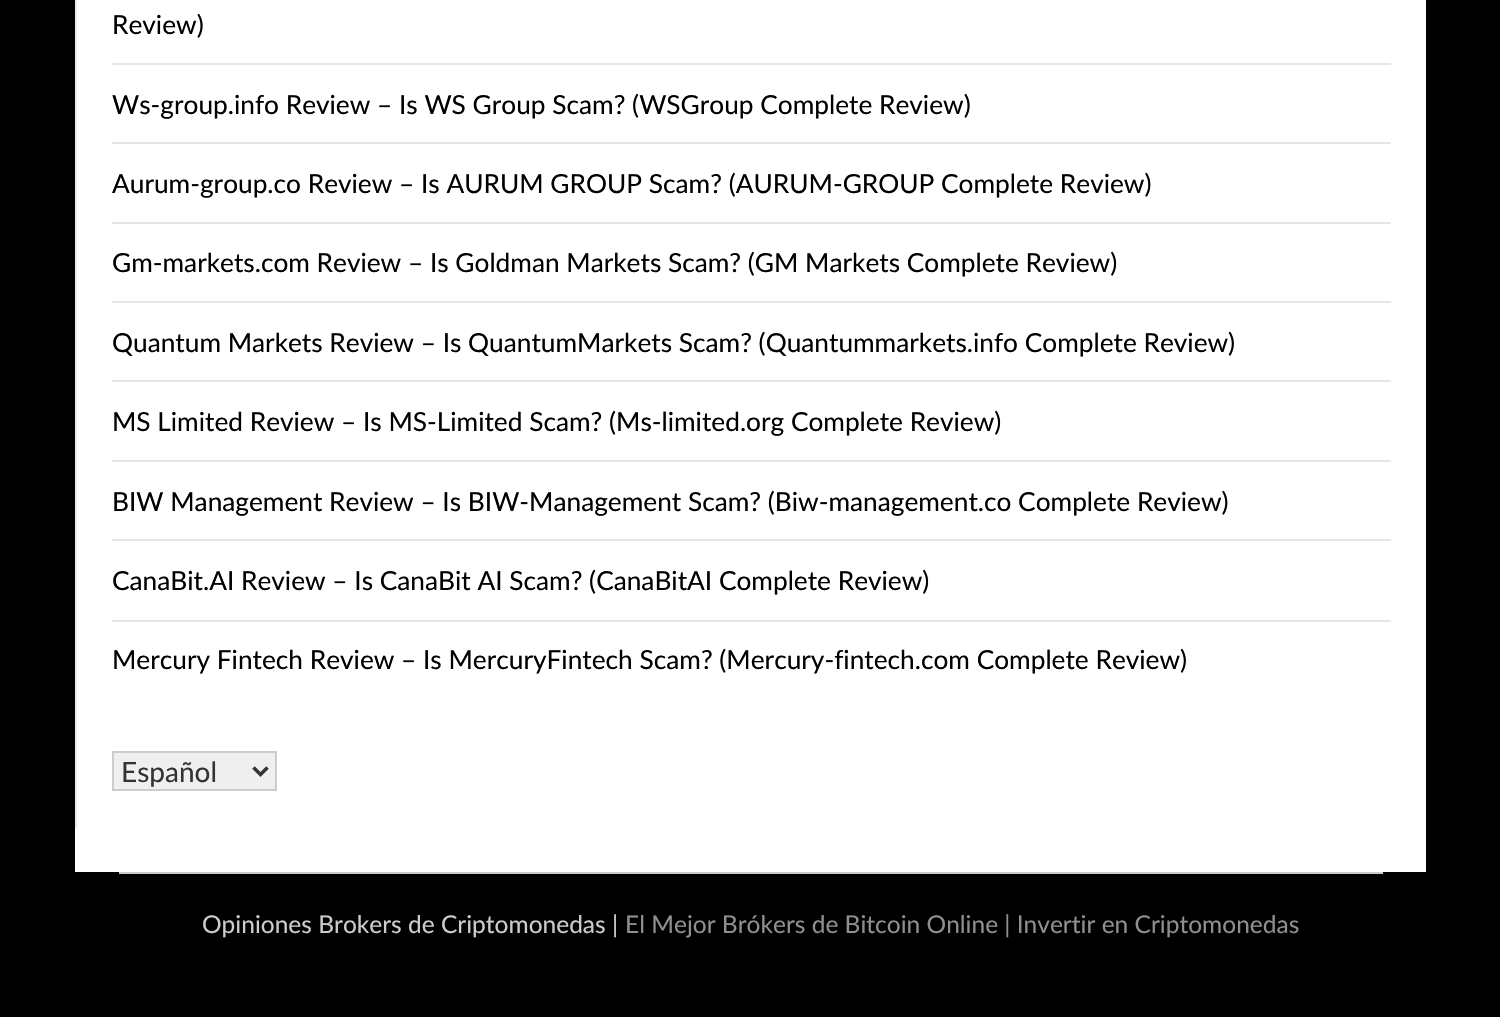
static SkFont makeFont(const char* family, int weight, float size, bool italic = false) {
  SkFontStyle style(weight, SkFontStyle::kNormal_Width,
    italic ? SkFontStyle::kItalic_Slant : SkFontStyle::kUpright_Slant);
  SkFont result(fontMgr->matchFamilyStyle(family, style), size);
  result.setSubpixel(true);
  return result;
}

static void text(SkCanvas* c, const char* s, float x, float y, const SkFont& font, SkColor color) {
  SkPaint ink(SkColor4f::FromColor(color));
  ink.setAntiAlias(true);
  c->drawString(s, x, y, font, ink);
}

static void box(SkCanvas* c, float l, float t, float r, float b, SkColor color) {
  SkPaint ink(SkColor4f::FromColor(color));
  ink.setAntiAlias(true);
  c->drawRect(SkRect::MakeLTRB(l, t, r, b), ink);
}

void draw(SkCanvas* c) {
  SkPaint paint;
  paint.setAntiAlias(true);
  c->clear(0xff000000);
  box(c, 75, 0, 1426, 872, 0xffffffff);
  box(c, 75, 0, 77, 828, 0xffececec);
  box(c, 112, 63, 1391, 65, 0xffe6e6e6);
  SkFont face1 = makeFont("Lato", 400, 26.25f);
  text(c, "Review)", 112, 34, face1, 0xff000000);
  box(c, 112, 142, 1391, 144, 0xffe6e6e6);
  text(c, "Ws-group.info Review – Is WS Group Scam? (WSGroup Complete Review)", 112, 114, face1, 0xff000000);
  box(c, 112, 222, 1391, 224, 0xffe6e6e6);
  text(c, "Aurum-group.co Review – Is AURUM GROUP Scam? (AURUM-GROUP Complete Review)", 112, 193, face1, 0xff000000);
  box(c, 112, 301, 1391, 303, 0xffe6e6e6);
  text(c, "Gm-markets.com Review – Is Goldman Markets Scam? (GM Markets Complete Review)", 112, 272, face1, 0xff000000);
  box(c, 112, 380, 1391, 382, 0xffe6e6e6);
  text(c, "Quantum Markets Review – Is QuantumMarkets Scam? (Quantummarkets.info Complete Review)", 112, 352, face1, 0xff000000);
  box(c, 112, 460, 1391, 462, 0xffe6e6e6);
  text(c, "MS Limited Review – Is MS-Limited Scam? (Ms-limited.org Complete Review)", 112, 431, face1, 0xff000000);
  box(c, 112, 539, 1391, 541, 0xffe6e6e6);
  text(c, "BIW Management Review – Is BIW-Management Scam? (Biw-management.co Complete Review)", 112, 511, face1, 0xff000000);
  box(c, 112, 620, 1391, 622, 0xffe6e6e6);
  text(c, "CanaBit.AI Review – Is CanaBit AI Scam? (CanaBitAI Complete Review)", 112, 590, face1, 0xff000000);
  text(c, "Mercury Fintech Review – Is MercuryFintech Scam? (Mercury-fintech.com Complete Review)", 112, 669, face1, 0xff000000);
  paint.setColor(0xffefefef);
  c->drawRect(SkRect::MakeLTRB(113, 752, 276, 790), paint);
  paint.setStyle(SkPaint::kStroke_Style);
  paint.setStrokeWidth(2);
  paint.setColor(0xffcccccc);
  c->drawRect(SkRect::MakeLTRB(113, 752, 276, 790), paint);
  paint.setStrokeWidth(3.5f);
  paint.setColor(0xff333333);
  c->drawPath(SkPathBuilder().moveTo(253.5f, 767.5f).lineTo(260.5f, 774.5f).lineTo(267.5f, 767.5f).detach(), paint);
  SkFont face2 = makeFont("Lato", 400, 28);
  text(c, "Español", 121, 782, face2, 0xff333333);
  box(c, 119, 872, 1383, 874, 0xffcccccc);
  SkFont face3 = makeFont("Lato", 400, 24.5f);
  text(c, "Opiniones Brokers de Criptomonedas |", 202, 933, face3, 0xffcccccc);
  text(c, "El Mejor Brókers de Bitcoin Online | Invertir en Criptomonedas", 625, 933, face3, 0xff8f8f8f);
}
